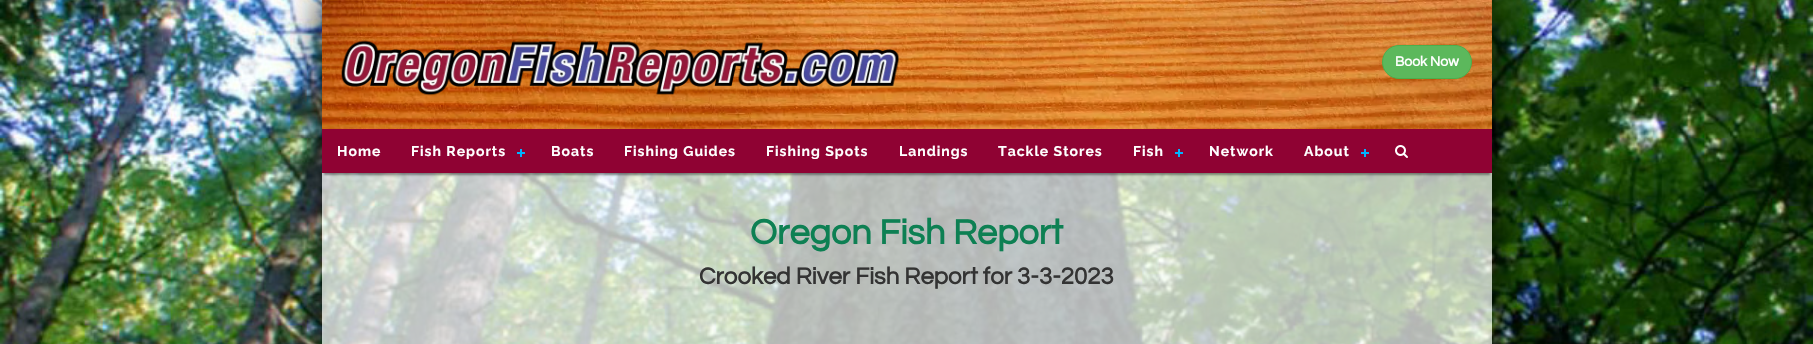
static SkFont makeFont(const char* family, int weight, float size, bool italic = false) {
  SkFontStyle style(weight, SkFontStyle::kNormal_Width,
    italic ? SkFontStyle::kItalic_Slant : SkFontStyle::kUpright_Slant);
  SkFont result(fontMgr->matchFamilyStyle(family, style), size);
  result.setSubpixel(true);
  return result;
}

static void text(SkCanvas* c, const char* s, float x, float y, const SkFont& font, SkColor color) {
  SkPaint ink(SkColor4f::FromColor(color));
  ink.setAntiAlias(true);
  c->drawString(s, x, y, font, ink);
}

static void spacedText(SkCanvas* c, const char* s, float x, float y, const SkFont& font, const SkPaint& ink, float letter, float word) {
  std::vector<SkGlyphID> glyphs(font.countText(s, strlen(s), SkTextEncoding::kUTF8));
  std::vector<float> xs(glyphs.size());
  font.textToGlyphs(s, strlen(s), SkTextEncoding::kUTF8, glyphs);
  font.getXPos(glyphs, xs, x);
  float extra = 0;
  for (size_t i = 0; i < glyphs.size(); i++) {
    xs[i] += extra;
    extra += letter + word * (glyphs[i] == font.unicharToGlyph(' '));
  }
  c->drawTextBlob(SkTextBlob::MakeFromPosHGlyphs(glyphs, xs, y, font), 0, 0, ink);
}

static void box(SkCanvas* c, float l, float t, float r, float b, SkColor color) {
  SkPaint ink(SkColor4f::FromColor(color));
  ink.setAntiAlias(true);
  c->drawRect(SkRect::MakeLTRB(l, t, r, b), ink);
}

static void picture(SkCanvas* c, const char* path, float l, float t, float r, float b) {
  auto image = SkImages::DeferredFromEncodedData(SkData::MakeFromFileName(path));
  c->drawImageRect(image, SkRect::MakeLTRB(l, t, r, b), SkSamplingOptions());
}

void draw(SkCanvas* c) {
  SkPaint paint;
  paint.setAntiAlias(true);
  c->clear(0xffffffff);
  picture(c, "img_01.png", 0, 0, 1813, 344);
  c->save();
  c->clipPath(SkPathBuilder(SkPathFillType::kEvenOdd).moveTo(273, 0).lineTo(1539, 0).lineTo(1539, 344).lineTo(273, 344).close().moveTo(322, 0).lineTo(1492, 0).lineTo(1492, 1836).lineTo(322, 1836).close().detach(), true);
  paint.setColor(0xcc000000);
  paint.setMaskFilter(SkMaskFilter::MakeBlur(kNormal_SkBlurStyle, 15));
  c->drawRect(SkRect::MakeLTRB(319, -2, 1493, 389), paint);
  paint.setMaskFilter(nullptr);
  c->restore();
  box(c, 322, 173, 1492, 344, 0xb3ffffff);
  picture(c, "img_02.png", 322, 0, 1492, 129);
  picture(c, "img_03.png", 341, 40, 900, 96);
  paint.setColor(0xff5cb85c);
  c->drawRoundRect(SkRect::MakeLTRB(1382.5f, 45.5f, 1471.5f, 78.5f), 16.5f, 16.5f, paint);
  paint.setStyle(SkPaint::kStroke_Style);
  paint.setStrokeWidth(1);
  paint.setColor(0xff4cae4c);
  c->drawRoundRect(SkRect::MakeLTRB(1382.5f, 45.5f, 1471.5f, 78.5f), 16.5f, 16.5f, paint);
  SkFont face1 = makeFont("Questrial", 700, 14);
  text(c, "Book Now", 1395, 66, face1, 0xffffffff);
  paint.setStyle(SkPaint::kFill_Style);
  paint.setColor(0x66000000);
  paint.setMaskFilter(SkMaskFilter::MakeBlur(kNormal_SkBlurStyle, 1));
  c->drawRect(SkRect::MakeLTRB(324, 135, 1490, 175), paint);
  paint.setMaskFilter(nullptr);
  box(c, 322, 129, 1492, 173, 0xff8f0233);
  SkFont face2 = makeFont("Raleway", 700, 14);
  paint.setColor(0xffffffff);
  spacedText(c, "Home", 337, 156, face2, paint, 1, 0);
  spacedText(c, "Fish Reports", 411, 156, face2, paint, 1, 0);
  box(c, 520, 149, 522, 157, 0xff00b3ff);
  box(c, 517, 152, 525, 154, 0xff00b3ff);
  spacedText(c, "Boats", 551, 156, face2, paint, 1, 0);
  spacedText(c, "Fishing Guides", 624, 156, face2, paint, 1, 0);
  spacedText(c, "Fishing Spots", 766, 156, face2, paint, 1, 0);
  spacedText(c, "Landings", 899, 156, face2, paint, 1, 0);
  spacedText(c, "Tackle Stores", 998, 156, face2, paint, 1, 0);
  spacedText(c, "Fish", 1133, 156, face2, paint, 1, 0);
  box(c, 1178, 149, 1180, 157, 0xff00b3ff);
  box(c, 1175, 152, 1183, 154, 0xff00b3ff);
  spacedText(c, "Network", 1209, 156, face2, paint, 1, 0);
  spacedText(c, "About", 1304, 156, face2, paint, 1, 0);
  box(c, 1364, 149, 1366, 157, 0xff00b3ff);
  box(c, 1361, 152, 1369, 154, 0xff00b3ff);
  picture(c, "img_04.png", 1395, 145, 1408, 158);
  SkFont face3 = makeFont("Questrial", 700, 36);
  text(c, "Oregon Fish Report", 750, 244, face3, 0xff0d8053);
  SkFont face4 = makeFont("Questrial", 700, 24);
  text(c, "Crooked River Fish Report for 3-3-2023", 699, 284, face4, 0xff333333);
}
